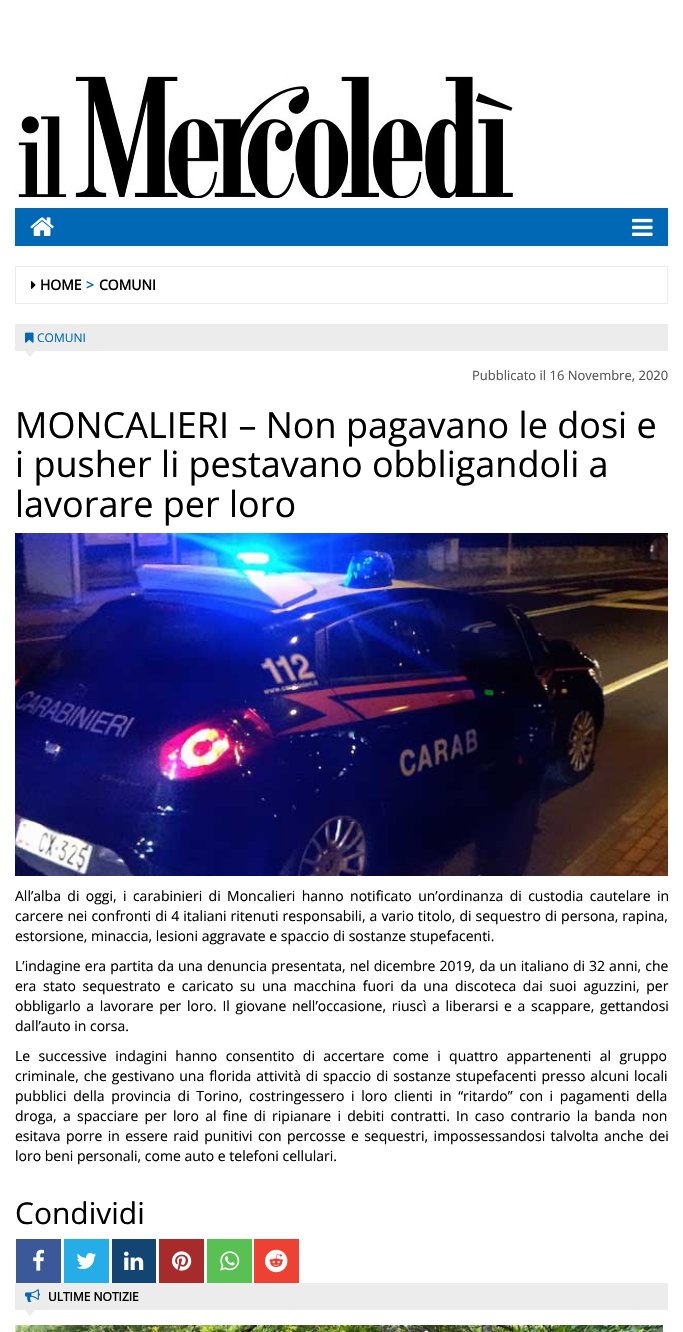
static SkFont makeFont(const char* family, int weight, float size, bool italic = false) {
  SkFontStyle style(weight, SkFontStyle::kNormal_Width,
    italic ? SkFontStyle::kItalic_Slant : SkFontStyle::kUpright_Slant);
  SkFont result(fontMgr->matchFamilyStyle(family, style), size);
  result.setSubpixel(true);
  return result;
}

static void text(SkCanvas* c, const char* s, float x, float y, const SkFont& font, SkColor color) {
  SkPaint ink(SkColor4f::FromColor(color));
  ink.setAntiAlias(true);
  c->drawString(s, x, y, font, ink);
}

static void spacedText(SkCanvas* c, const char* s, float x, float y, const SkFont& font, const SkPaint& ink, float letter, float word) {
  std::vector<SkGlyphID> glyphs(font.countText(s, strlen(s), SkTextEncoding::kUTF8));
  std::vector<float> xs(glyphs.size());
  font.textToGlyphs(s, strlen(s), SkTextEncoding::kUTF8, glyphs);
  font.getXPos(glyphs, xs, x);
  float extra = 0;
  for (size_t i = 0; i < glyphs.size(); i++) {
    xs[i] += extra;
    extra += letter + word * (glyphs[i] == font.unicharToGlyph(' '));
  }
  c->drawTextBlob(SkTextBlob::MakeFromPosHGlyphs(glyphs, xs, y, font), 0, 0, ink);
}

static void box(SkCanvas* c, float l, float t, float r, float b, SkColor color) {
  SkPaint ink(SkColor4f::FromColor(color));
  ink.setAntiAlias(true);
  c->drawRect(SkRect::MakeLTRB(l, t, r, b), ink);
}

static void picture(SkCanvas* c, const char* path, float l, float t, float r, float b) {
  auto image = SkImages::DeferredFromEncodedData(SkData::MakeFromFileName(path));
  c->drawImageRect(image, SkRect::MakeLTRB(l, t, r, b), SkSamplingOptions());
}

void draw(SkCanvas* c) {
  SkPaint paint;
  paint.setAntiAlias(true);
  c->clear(0xffffffff);
  picture(c, "img_01.png", 15, 72, 515, 198);
  box(c, 15, 208, 668, 246, 0xff0068b5);
  picture(c, "img_02.png", 30, 217, 54, 236);
  picture(c, "img_03.png", 632, 218, 653, 236);
  paint.setStyle(SkPaint::kStroke_Style);
  paint.setStrokeWidth(1);
  paint.setColor(0xffececec);
  c->drawRect(SkRect::MakeLTRB(15.5f, 266.5f, 667.5f, 303.5f), paint);
  picture(c, "img_04.png", 31, 281, 36, 289);
  SkFont face1 = makeFont("Open Sans", 700, 14);
  text(c, "HOME", 40, 290, face1, 0xff000000);
  text(c, ">", 86, 290, face1, 0xff0068b5);
  text(c, "COMUNI", 99, 290, face1, 0xff000000);
  box(c, 15, 324, 668, 351, 0xffececec);
  picture(c, "img_05.png", 25, 332, 34, 343);
  SkFont face2 = makeFont("Open Sans", 400, 12);
  text(c, "COMUNI", 37, 342, face2, 0xff0068b5);
  paint.setStyle(SkPaint::kFill_Style);
  c->drawPath(SkPathBuilder().moveTo(25, 351).lineTo(35, 351).lineTo(30, 357).close().detach(), paint);
  SkFont face3 = makeFont("Open Sans", 400, 13);
  text(c, "Pubblicato il 16 Novembre, 2020", 472, 380, face3, 0xff545454);
  SkFont face4 = makeFont("Open Sans", 400, 36);
  text(c, "MONCALIERI – Non pagavano le dosi e", 15, 438, face4, 0xff000000);
  text(c, "i pusher li pestavano obbligandoli a", 15, 477, face4, 0xff000000);
  text(c, "lavorare per loro", 15, 517, face4, 0xff000000);
  picture(c, "img_06.png", 15, 533, 668, 876);
  SkFont face5 = makeFont("Open Sans", 400, 14);
  paint.setColor(0xff000000);
  spacedText(c, "All’alba di oggi, i carabinieri di Moncalieri hanno notificato un’ordinanza di custodia cautelare in", 15, 901, face5, paint, 0, 2.75f);
  spacedText(c, "carcere nei confronti di 4 italiani ritenuti responsabili, a vario titolo, di sequestro di persona, rapina,", 15, 921, face5, paint, 0, 0.4f);
  text(c, "estorsione, minaccia, lesioni aggravate e spaccio di sostanze stupefacenti.", 15, 941, face5, 0xff000000);
  spacedText(c, "L’indagine era partita da una denuncia presentata, nel dicembre 2019, da un italiano di 32 anni, che", 15, 971, face5, paint, 0, 0.4f);
  spacedText(c, "era stato sequestrato e caricato su una macchina fuori da una discoteca dai suoi aguzzini, per", 15, 991, face5, paint, 0, 3);
  spacedText(c, "obbligarlo a lavorare per loro. Il giovane nell’occasione, riuscì a liberarsi e a scappare, gettandosi", 15, 1011, face5, paint, 0, 2);
  text(c, "dall’auto in corsa.", 15, 1031, face5, 0xff000000);
  spacedText(c, "Le successive indagini hanno consentito di accertare come i quattro appartenenti al gruppo", 15, 1061, face5, paint, 0, 4.75f);
  spacedText(c, "criminale, che gestivano una florida attività di spaccio di sostanze stupefacenti presso alcuni locali", 15, 1081, face5, paint, 0, 1.3f);
  spacedText(c, "pubblici della provincia di Torino, costringessero i loro clienti in “ritardo” con i pagamenti della", 15, 1101, face5, paint, 0, 3);
  spacedText(c, "droga, a spacciare per loro al fine di ripianare i debiti contratti. In caso contrario la banda non", 15, 1121, face5, paint, 0, 2.6f);
  spacedText(c, "esitava porre in essere raid punitivi con percosse e sequestri, impossessandosi talvolta anche dei", 15, 1141, face5, paint, 0, 1.75f);
  text(c, "loro beni personali, come auto e telefoni cellulari.", 15, 1161, face5, 0xff000000);
  SkFont face6 = makeFont("Open Sans", 400, 30);
  text(c, "Condividi", 15, 1224, face6, 0xff000000);
  box(c, 16, 1239, 61, 1283, 0xff3b5998);
  picture(c, "img_07.png", 33, 1249, 44, 1271);
  box(c, 64, 1239, 109, 1283, 0xff25ade7);
  picture(c, "img_08.png", 76, 1253, 96, 1269);
  box(c, 112, 1239, 156, 1283, 0xff124572);
  picture(c, "img_09.png", 124, 1251, 144, 1270);
  box(c, 159, 1239, 204, 1283, 0xffa72b2b);
  picture(c, "img_10.png", 172, 1251, 192, 1271);
  box(c, 207, 1239, 252, 1283, 0xff59c153);
  picture(c, "img_11.png", 220, 1251, 240, 1271);
  box(c, 254, 1239, 299, 1283, 0xffed4233);
  picture(c, "img_12.png", 265, 1249, 288, 1273);
  box(c, 15, 1283, 668, 1310, 0xffececec);
  picture(c, "img_13.png", 25, 1289, 40, 1303);
  SkFont face7 = makeFont("Open Sans", 700, 12);
  text(c, "ULTIME NOTIZIE", 48, 1301, face7, 0xff000000);
  paint.setColor(0xffececec);
  c->drawPath(SkPathBuilder().moveTo(25, 1310).lineTo(35, 1310).lineTo(30, 1316).close().detach(), paint);
  picture(c, "img_14.png", 15, 1325, 663, 1332);
}
